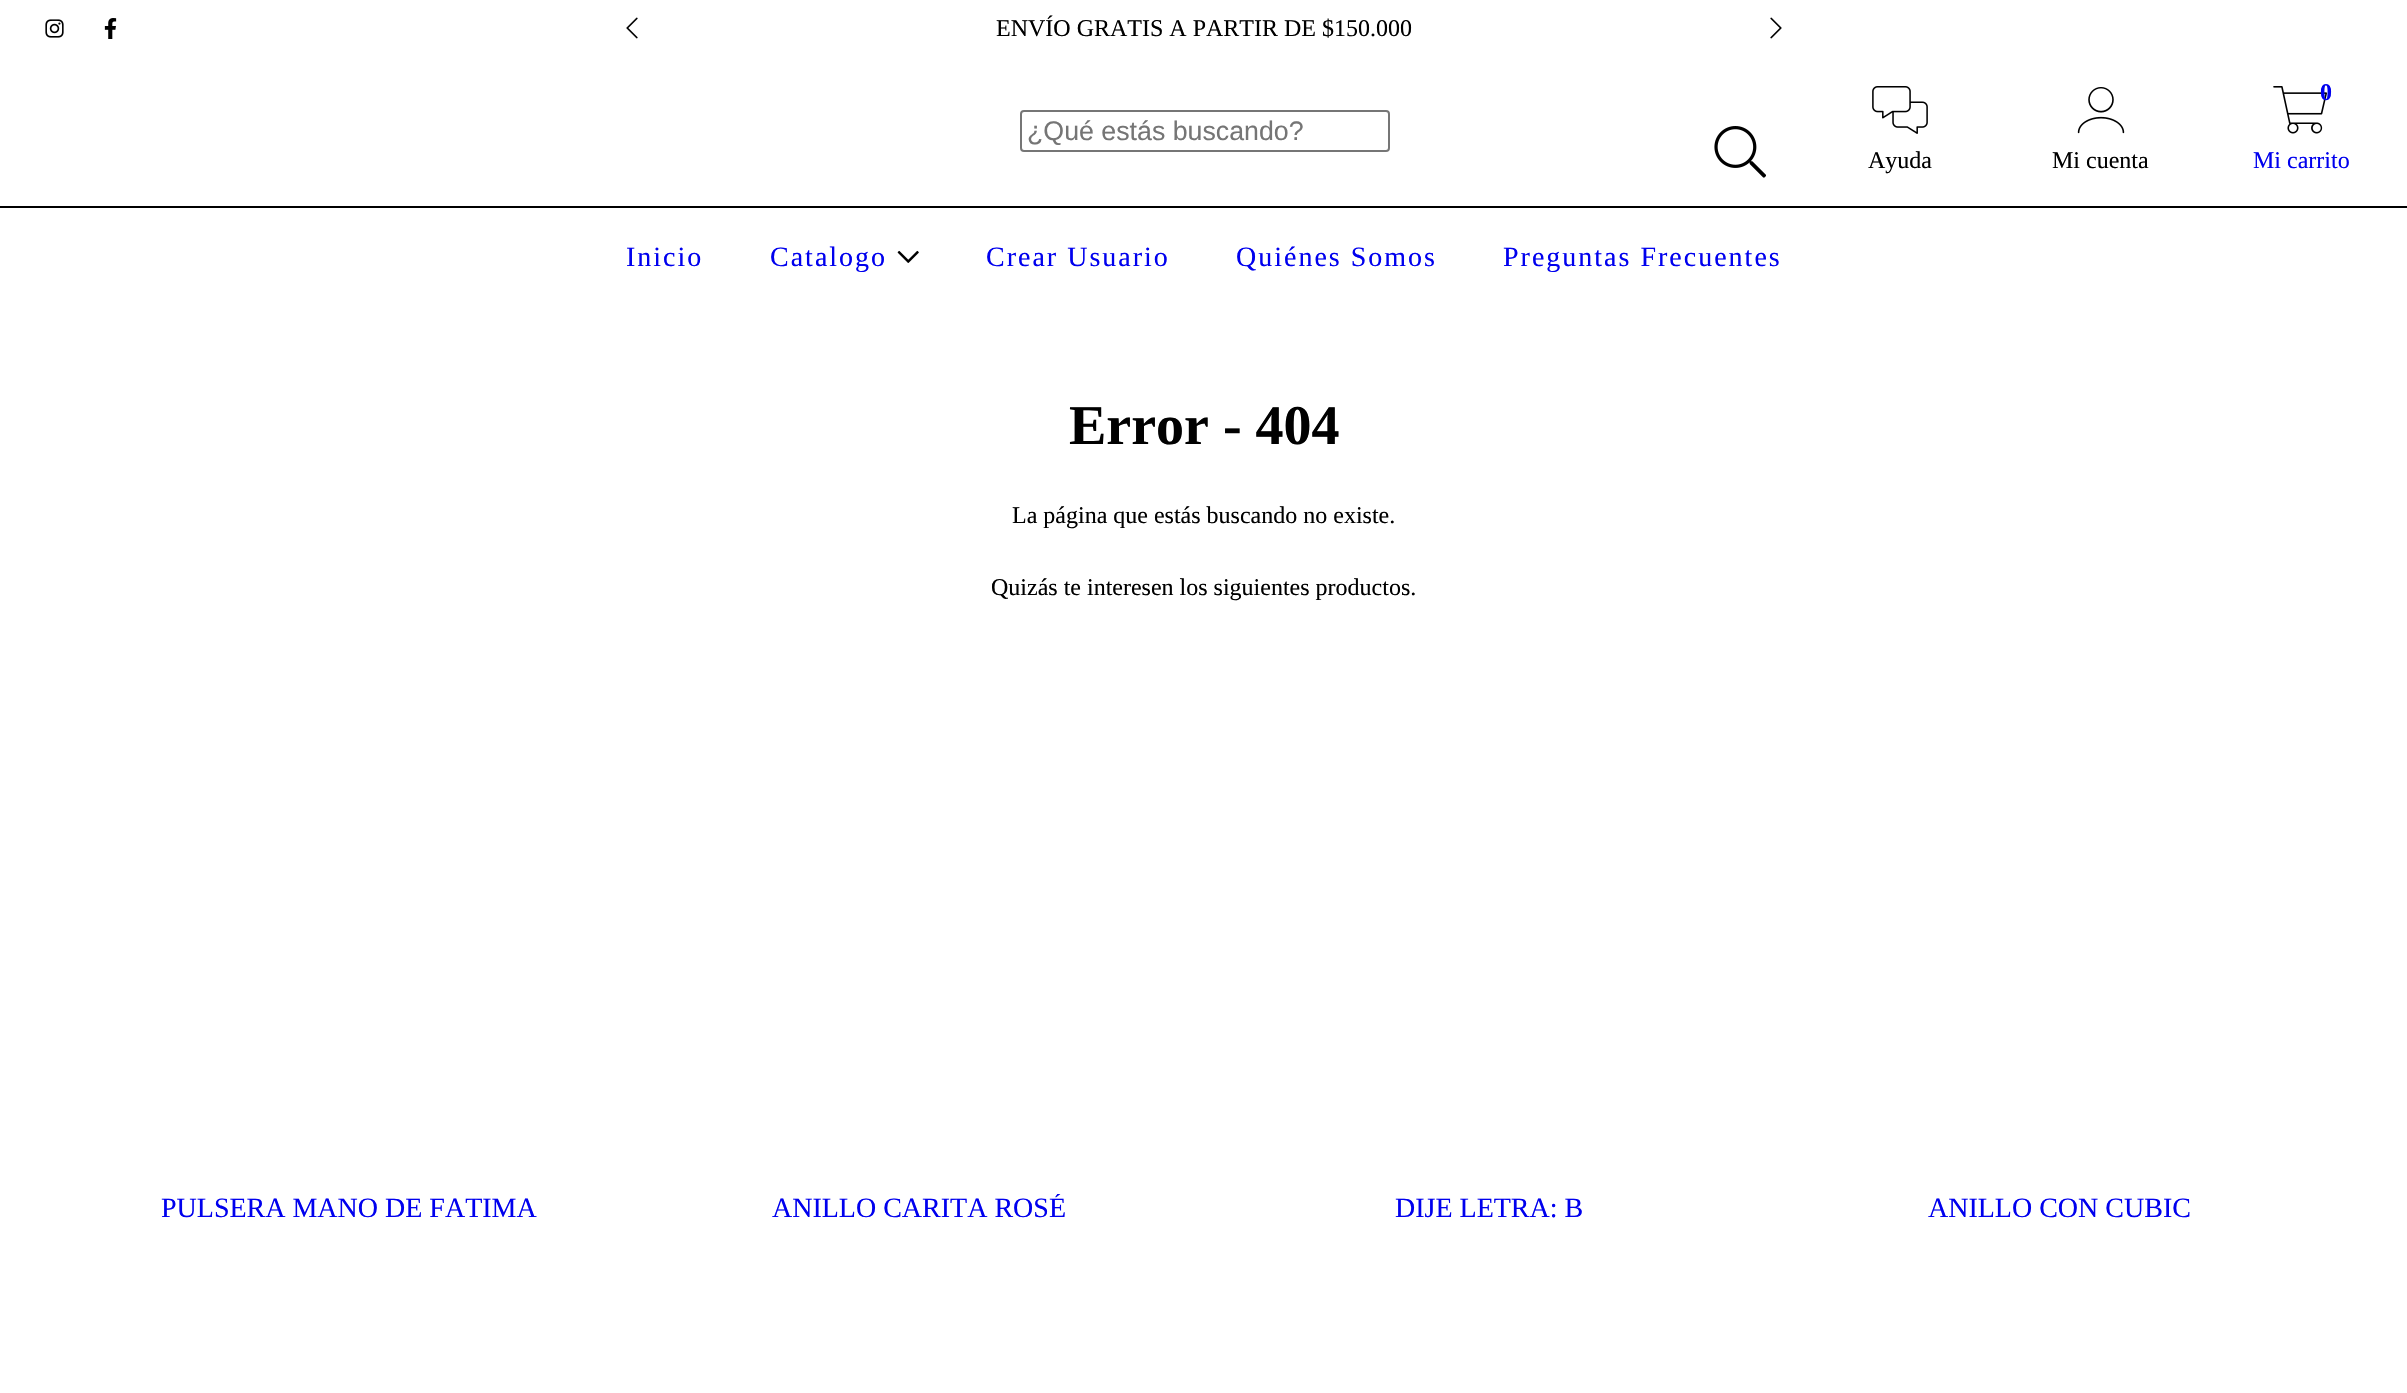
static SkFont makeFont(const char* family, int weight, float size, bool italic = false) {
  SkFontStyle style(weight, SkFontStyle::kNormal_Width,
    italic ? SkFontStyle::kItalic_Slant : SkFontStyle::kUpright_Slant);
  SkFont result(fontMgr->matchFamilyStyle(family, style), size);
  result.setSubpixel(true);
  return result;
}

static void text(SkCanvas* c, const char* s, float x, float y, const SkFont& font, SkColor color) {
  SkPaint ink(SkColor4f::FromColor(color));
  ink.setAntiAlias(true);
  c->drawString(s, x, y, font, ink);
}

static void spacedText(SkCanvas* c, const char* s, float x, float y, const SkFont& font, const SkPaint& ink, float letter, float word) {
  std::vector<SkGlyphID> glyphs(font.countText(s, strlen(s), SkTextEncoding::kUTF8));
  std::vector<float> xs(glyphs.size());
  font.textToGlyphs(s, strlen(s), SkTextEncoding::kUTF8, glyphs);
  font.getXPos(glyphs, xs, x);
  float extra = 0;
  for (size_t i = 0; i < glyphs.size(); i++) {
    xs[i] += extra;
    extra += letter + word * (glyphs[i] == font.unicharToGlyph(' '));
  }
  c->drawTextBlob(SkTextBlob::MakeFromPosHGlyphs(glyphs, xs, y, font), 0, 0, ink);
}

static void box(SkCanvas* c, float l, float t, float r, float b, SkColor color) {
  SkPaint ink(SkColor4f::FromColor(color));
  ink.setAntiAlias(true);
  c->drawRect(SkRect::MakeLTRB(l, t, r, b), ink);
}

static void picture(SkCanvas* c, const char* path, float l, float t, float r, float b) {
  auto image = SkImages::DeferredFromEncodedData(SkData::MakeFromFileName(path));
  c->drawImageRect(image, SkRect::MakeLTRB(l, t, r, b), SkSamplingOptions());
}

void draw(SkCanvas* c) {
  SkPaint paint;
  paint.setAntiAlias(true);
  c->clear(0xffffffff);
  picture(c, "img_01.png", 45, 19, 64, 38);
  picture(c, "img_02.png", 104, 18, 117, 39);
  picture(c, "img_03.png", 626, 17, 638, 39);
  SkFont face1 = makeFont("Liberation Serif", 400, 24);
  text(c, "ENVÍO GRATIS A PARTIR DE $150.000", 996, 36, face1, 0xff000000);
  picture(c, "img_04.png", 1770, 17, 1782, 39);
  paint.setStyle(SkPaint::kStroke_Style);
  paint.setStrokeWidth(2);
  paint.setColor(0xff767676);
  c->drawRoundRect(SkRect::MakeLTRB(1021, 111, 1389, 151), 3, 3, paint);
  SkFont face2 = makeFont("Liberation Sans", 400, 26.75f);
  text(c, "¿Qué estás buscando?", 1027, 140, face2, 0xff757575);
  picture(c, "img_05.png", 1714, 126, 1766, 178);
  picture(c, "img_06.png", 1872, 86, 1928, 134);
  text(c, "Ayuda", 1868, 168, face1, 0xff000000);
  picture(c, "img_07.png", 2077, 87, 2125, 134);
  text(c, "Mi cuenta", 2052, 168, face1, 0xff000000);
  picture(c, "img_08.png", 2273, 86, 2327, 134);
  SkFont face3 = makeFont("Liberation Serif", 700, 24);
  text(c, "0", 2320, 100, face3, 0xff0000ee);
  text(c, "Mi carrito", 2253, 168, face1, 0xff0000ee);
  box(c, 0, 206, 2407, 208, 0xff000000);
  SkFont face4 = makeFont("Liberation Serif", 400, 28);
  paint.setStyle(SkPaint::kFill_Style);
  paint.setColor(0xff0000ee);
  spacedText(c, "Inicio", 626, 266, face4, paint, 2, 0);
  spacedText(c, "Catalogo", 770, 266, face4, paint, 2, 0);
  picture(c, "img_09.png", 897, 250, 919, 263);
  spacedText(c, "Crear Usuario", 986, 266, face4, paint, 2, 0);
  spacedText(c, "Quiénes Somos", 1236, 266, face4, paint, 2, 0);
  spacedText(c, "Preguntas Frecuentes", 1503, 266, face4, paint, 2, 0);
  SkFont face5 = makeFont("Liberation Serif", 700, 56);
  text(c, "Error - 404", 1069, 444, face5, 0xff000000);
  text(c, "La página que estás buscando no existe.", 1012, 523, face1, 0xff000000);
  text(c, "Quizás te interesen los siguientes productos.", 991, 595, face1, 0xff000000);
  text(c, "PULSERA MANO DE FATIMA", 161, 1217, face4, 0xff0000ee);
  c->save();
  c->clipRect(SkRect::MakeLTRB(696, 1194, 1142, 1226));
  text(c, "ANILLO CARITA ROSÉ", 772, 1217, face4, 0xff0000ee);
  c->restore();
  text(c, "DIJE LETRA: B", 1395, 1217, face4, 0xff0000ee);
  text(c, "ANILLO CON CUBIC", 1928, 1217, face4, 0xff0000ee);
}
